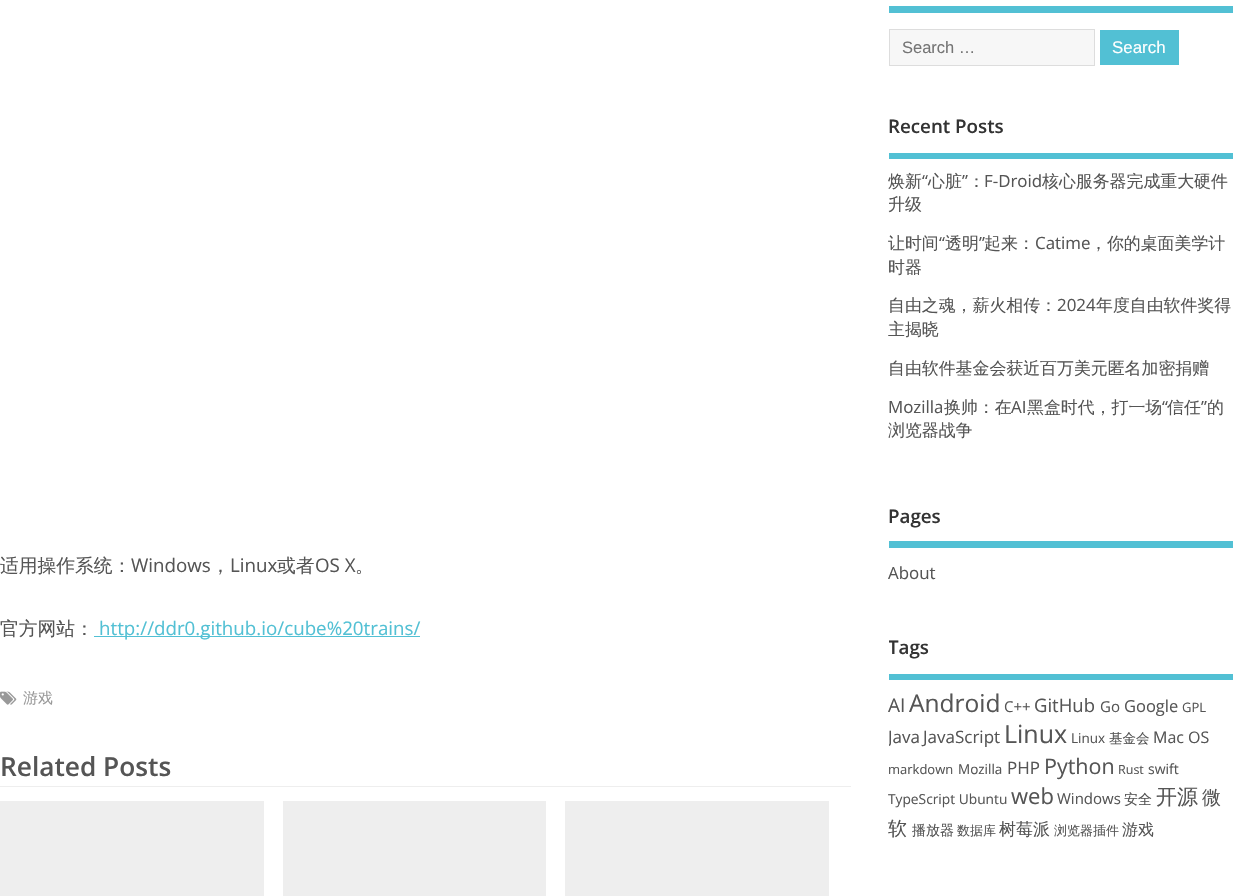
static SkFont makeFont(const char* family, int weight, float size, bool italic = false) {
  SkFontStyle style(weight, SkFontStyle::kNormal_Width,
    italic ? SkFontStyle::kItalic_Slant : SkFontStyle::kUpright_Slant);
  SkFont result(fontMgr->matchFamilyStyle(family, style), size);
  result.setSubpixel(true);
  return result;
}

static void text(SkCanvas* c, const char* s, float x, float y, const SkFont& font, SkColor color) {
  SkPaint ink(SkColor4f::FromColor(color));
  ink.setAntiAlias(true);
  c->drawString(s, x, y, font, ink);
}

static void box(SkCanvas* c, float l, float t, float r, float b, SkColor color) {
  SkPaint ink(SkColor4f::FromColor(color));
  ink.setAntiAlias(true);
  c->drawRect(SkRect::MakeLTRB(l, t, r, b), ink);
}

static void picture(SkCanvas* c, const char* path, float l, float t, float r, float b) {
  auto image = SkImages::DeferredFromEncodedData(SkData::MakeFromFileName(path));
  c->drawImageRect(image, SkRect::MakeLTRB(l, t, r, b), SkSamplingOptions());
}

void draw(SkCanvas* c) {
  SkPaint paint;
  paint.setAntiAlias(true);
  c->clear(0xffffffff);
  SkFont face1 = makeFont("WenQuanYi Zen Hei", 500, 18.75f);
  text(c, "适用操作系统：", 0, 572, face1, 0xff555555);
  SkFont face2 = makeFont("Open Sans", 400, 18.75f);
  text(c, "Windows", 131, 572, face2, 0xff555555);
  text(c, "，", 211, 572, face1, 0xff555555);
  text(c, "Linux", 230, 572, face2, 0xff555555);
  text(c, "或者", 277, 572, face1, 0xff555555);
  text(c, "OS X", 315, 572, face2, 0xff555555);
  text(c, "。", 355, 572, face1, 0xff555555);
  text(c, "官方网站：", 0, 635, face1, 0xff555555);
  box(c, 94, 636, 420, 637, 0xff52c0d4);
  text(c, "http://ddr0.github.io/cube%20trains/", 99, 635, face2, 0xff52c0d4);
  picture(c, "img_01.png", 0, 691, 17, 705);
  SkFont face3 = makeFont("WenQuanYi Zen Hei", 500, 15);
  text(c, "游戏", 23, 703, face3, 0xff999999);
  box(c, 0, 786, 851, 787, 0xffeeeeee);
  SkFont face4 = makeFont("Open Sans", 600, 26.25f);
  text(c, "Related Posts", 0, 776, face4, 0xff555555);
  box(c, 0, 801, 264, 896, 0xffeeeeee);
  box(c, 283, 801, 546, 896, 0xffeeeeee);
  box(c, 565, 801, 829, 896, 0xffeeeeee);
  box(c, 889, 6, 1233, 13, 0xff52c0d4);
  paint.setColor(0xfff7f7f7);
  c->drawRect(SkRect::MakeLTRB(889.5f, 29.5f, 1094.5f, 65.5f), paint);
  paint.setStyle(SkPaint::kStroke_Style);
  paint.setStrokeWidth(1);
  paint.setColor(0xffdddddd);
  c->drawRect(SkRect::MakeLTRB(889.5f, 29.5f, 1094.5f, 65.5f), paint);
  SkFont face5 = makeFont("Liberation Sans", 400, 16.5f);
  text(c, "Search …", 902, 53, face5, 0xff757575);
  box(c, 1100, 30, 1179, 65, 0xff52c0d4);
  SkFont face6 = makeFont("Liberation Sans", 400, 16.9f);
  text(c, "Search", 1112, 53, face6, 0xffffffff);
  box(c, 889, 153, 1233, 159, 0xff52c0d4);
  SkFont face7 = makeFont("Open Sans", 600, 18.75f);
  text(c, "Recent Posts", 888, 133, face7, 0xff333333);
  SkFont face8 = makeFont("WenQuanYi Zen Hei", 500, 16.9f);
  text(c, "焕新", 888, 187, face8, 0xff555555);
  SkFont face9 = makeFont("Open Sans", 400, 16.9f);
  text(c, "“", 922, 187, face9, 0xff555555);
  text(c, "心脏", 928, 187, face8, 0xff555555);
  text(c, "”", 962, 187, face9, 0xff555555);
  text(c, "：", 968, 187, face8, 0xff555555);
  text(c, "F-Droid", 984, 187, face9, 0xff555555);
  text(c, "核心服务器完成重大硬件", 1042, 187, face8, 0xff555555);
  text(c, "升级", 888, 210, face8, 0xff555555);
  text(c, "让时间", 888, 249, face8, 0xff555555);
  text(c, "“", 939, 249, face9, 0xff555555);
  text(c, "透明", 945, 249, face8, 0xff555555);
  text(c, "”", 979, 249, face9, 0xff555555);
  text(c, "起来：", 984, 249, face8, 0xff555555);
  text(c, "Catime", 1035, 249, face9, 0xff555555);
  text(c, "，你的桌面美学计", 1090, 249, face8, 0xff555555);
  text(c, "时器", 888, 273, face8, 0xff555555);
  text(c, "自由之魂，薪火相传：", 888, 311, face8, 0xff555555);
  text(c, "2024", 1057, 311, face9, 0xff555555);
  text(c, "年度自由软件奖得", 1096, 311, face8, 0xff555555);
  text(c, "主揭晓", 888, 335, face8, 0xff555555);
  text(c, "自由软件基金会获近百万美元匿名加密捐赠", 888, 374, face8, 0xff555555);
  text(c, "Mozilla", 888, 413, face9, 0xff555555);
  text(c, "换帅：在", 944, 413, face8, 0xff555555);
  text(c, "AI", 1011, 413, face9, 0xff555555);
  text(c, "黑盒时代，打一场", 1027, 413, face8, 0xff555555);
  text(c, "“", 1162, 413, face9, 0xff555555);
  text(c, "信任", 1167, 413, face8, 0xff555555);
  text(c, "”", 1201, 413, face9, 0xff555555);
  text(c, "的", 1207, 413, face8, 0xff555555);
  text(c, "浏览器战争", 888, 436, face8, 0xff555555);
  box(c, 889, 541, 1233, 548, 0xff52c0d4);
  text(c, "Pages", 888, 523, face7, 0xff333333);
  text(c, "About", 888, 579, face9, 0xff555555);
  box(c, 889, 674, 1233, 680, 0xff52c0d4);
  c->save();
  c->clipRect(SkRect::MakeLTRB(889, 0, 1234, 889));
  text(c, "Tags", 888, 654, face7, 0xff333333);
  c->restore();
  SkFont face10 = makeFont("Open Sans", 400, 19);
  text(c, "AI", 888, 712, face10, 0xff555555);
  SkFont face11 = makeFont("Open Sans", 400, 24.5f);
  text(c, "Android", 909, 712, face11, 0xff555555);
  SkFont face12 = makeFont("Open Sans", 400, 15);
  text(c, "C++", 1004, 712, face12, 0xff555555);
  SkFont face13 = makeFont("Open Sans", 400, 18.5f);
  text(c, "GitHub", 1034, 712, face13, 0xff555555);
  text(c, "Go", 1100, 712, face12, 0xff555555);
  SkFont face14 = makeFont("Open Sans", 400, 16.5f);
  text(c, "Google", 1124, 712, face14, 0xff555555);
  SkFont face15 = makeFont("Open Sans", 400, 13);
  text(c, "GPL", 1182, 712, face15, 0xff555555);
  c->save();
  c->clipRect(SkRect::MakeLTRB(889, 689, 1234, 844));
  SkFont face16 = makeFont("Open Sans", 400, 17);
  text(c, "Java", 888, 743, face16, 0xff555555);
  c->restore();
  text(c, "JavaScript", 923, 743, face16, 0xff555555);
  SkFont face17 = makeFont("Open Sans", 400, 25);
  text(c, "Linux", 1004, 743, face17, 0xff555555);
  SkFont face18 = makeFont("Open Sans", 400, 13.5f);
  text(c, "Linux", 1071, 743, face18, 0xff555555);
  SkFont face19 = makeFont("WenQuanYi Zen Hei", 500, 13.5f);
  text(c, "基金会", 1109, 743, face19, 0xff555555);
  SkFont face20 = makeFont("Open Sans", 400, 16);
  text(c, "Mac OS", 1153, 743, face20, 0xff555555);
  text(c, "markdown", 888, 774, face15, 0xff555555);
  text(c, "Mozilla", 958, 774, face18, 0xff555555);
  text(c, "PHP", 1007, 774, face16, 0xff555555);
  SkFont face21 = makeFont("Open Sans", 400, 21.5f);
  text(c, "Python", 1044, 774, face21, 0xff555555);
  SkFont face22 = makeFont("Open Sans", 400, 12.5f);
  text(c, "Rust", 1118, 774, face22, 0xff555555);
  SkFont face23 = makeFont("Open Sans", 400, 14);
  text(c, "swift", 1148, 774, face23, 0xff555555);
  SkFont face24 = makeFont("Open Sans", 400, 13.75f);
  text(c, "TypeScript Ubuntu", 888, 804, face24, 0xff555555);
  SkFont face25 = makeFont("Open Sans", 400, 22);
  text(c, "web", 1011, 804, face25, 0xff555555);
  text(c, "Windows", 1057, 804, face12, 0xff555555);
  SkFont face26 = makeFont("WenQuanYi Zen Hei", 500, 14);
  text(c, "安全", 1124, 804, face26, 0xff555555);
  SkFont face27 = makeFont("WenQuanYi Zen Hei", 500, 21);
  text(c, "开源", 1156, 804, face27, 0xff555555);
  SkFont face28 = makeFont("WenQuanYi Zen Hei", 500, 19);
  text(c, "微", 1202, 804, face28, 0xff555555);
  text(c, "软", 888, 835, face28, 0xff555555);
  text(c, "播放器", 912, 835, face26, 0xff555555);
  SkFont face29 = makeFont("WenQuanYi Zen Hei", 500, 13);
  text(c, "数据库", 957, 835, face29, 0xff555555);
  SkFont face30 = makeFont("WenQuanYi Zen Hei", 500, 17);
  text(c, "树莓派", 999, 835, face30, 0xff555555);
  text(c, "浏览器插件", 1054, 835, face29, 0xff555555);
  SkFont face31 = makeFont("WenQuanYi Zen Hei", 500, 16);
  text(c, "游戏", 1122, 835, face31, 0xff555555);
}
